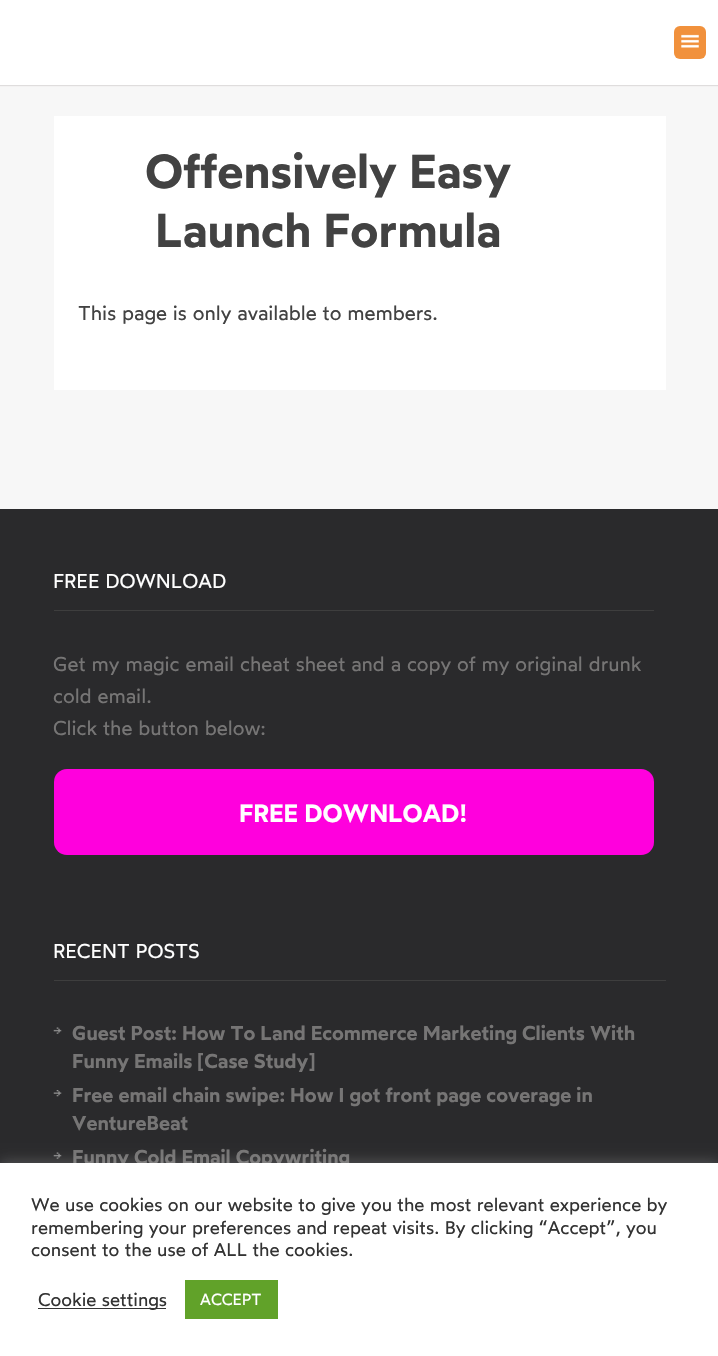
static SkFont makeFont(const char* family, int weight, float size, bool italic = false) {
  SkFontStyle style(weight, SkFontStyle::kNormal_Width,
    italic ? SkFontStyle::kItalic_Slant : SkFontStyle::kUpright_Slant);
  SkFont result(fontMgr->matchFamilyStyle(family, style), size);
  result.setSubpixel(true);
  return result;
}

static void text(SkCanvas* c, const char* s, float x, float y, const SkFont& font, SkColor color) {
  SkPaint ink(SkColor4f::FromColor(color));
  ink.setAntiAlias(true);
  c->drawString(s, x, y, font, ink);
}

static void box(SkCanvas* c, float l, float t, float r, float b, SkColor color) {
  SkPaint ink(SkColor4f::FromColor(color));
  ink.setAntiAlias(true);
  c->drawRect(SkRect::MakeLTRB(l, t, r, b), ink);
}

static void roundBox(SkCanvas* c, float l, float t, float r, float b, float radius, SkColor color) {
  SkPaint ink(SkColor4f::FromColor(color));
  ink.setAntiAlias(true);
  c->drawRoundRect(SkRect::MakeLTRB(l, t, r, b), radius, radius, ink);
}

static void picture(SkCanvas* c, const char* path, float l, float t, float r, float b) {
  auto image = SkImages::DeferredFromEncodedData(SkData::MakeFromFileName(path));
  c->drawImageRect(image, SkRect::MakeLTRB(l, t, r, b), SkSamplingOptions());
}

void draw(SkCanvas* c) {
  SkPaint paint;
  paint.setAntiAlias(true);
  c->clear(0xfff7f7f7);
  paint.setColor(0xffdfdddd);
  paint.setMaskFilter(SkMaskFilter::MakeBlur(kNormal_SkBlurStyle, 0.5f));
  c->drawRect(SkRect::MakeLTRB(0, 1, 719, 86), paint);
  paint.setMaskFilter(nullptr);
  box(c, 0, 0, 718, 85, 0xffffffff);
  roundBox(c, 674, 26, 706, 59, 6, 0xfff1913c);
  picture(c, "img_01.png", 681, 34, 699, 48);
  box(c, 54, 116, 666, 390, 0xffffffff);
  SkFont face1 = makeFont("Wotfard", 600, 47.5f);
  text(c, "Offensively Easy", 145, 188, face1, 0xff424242);
  text(c, "Launch Formula", 155, 247, face1, 0xff424242);
  SkFont face2 = makeFont("Wotfard", 400, 20);
  text(c, "This page is only available to members.", 78, 320, face2, 0xff424242);
  box(c, 0, 509, 718, 1163, 0xff2a2a2c);
  box(c, 54, 610, 654, 611, 0xff3e3e3e);
  text(c, "FREE DOWNLOAD", 53, 588, face2, 0xffffffff);
  text(c, "Get my magic email cheat sheet and a copy of my original drunk", 53, 671, face2, 0xff767575);
  text(c, "cold email.", 53, 703, face2, 0xff767575);
  text(c, "Click the button below:", 53, 735, face2, 0xff767575);
  roundBox(c, 54, 769, 654, 855, 13, 0xffff00dd);
  SkFont face3 = makeFont("Wotfard", 600, 25);
  text(c, "FREE DOWNLOAD!", 239, 822, face3, 0xffffffff);
  box(c, 54, 980, 666, 981, 0xff3e3e3e);
  text(c, "RECENT POSTS", 53, 958, face2, 0xffffffff);
  picture(c, "img_02.png", 53, 1027, 62, 1034);
  SkFont face4 = makeFont("Wotfard", 600, 20);
  text(c, "Guest Post: How To Land Ecommerce Marketing Clients With", 72, 1040, face4, 0xff767575);
  text(c, "Funny Emails [Case Study]", 72, 1068, face4, 0xff767575);
  picture(c, "img_03.png", 53, 1090, 62, 1097);
  text(c, "Free email chain swipe: How I got front page coverage in", 72, 1102, face4, 0xff767575);
  text(c, "VentureBeat", 72, 1130, face4, 0xff767575);
  picture(c, "img_02.png", 53, 1152, 62, 1159);
  text(c, "Funny Cold Email Copywriting", 72, 1164, face4, 0xff767575);
  paint.setColor(0x4dacabab);
  paint.setMaskFilter(SkMaskFilter::MakeBlur(kNormal_SkBlurStyle, 6));
  c->drawRect(SkRect::MakeLTRB(0, 1161, 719, 1355), paint);
  paint.setMaskFilter(nullptr);
  box(c, 0, 1163, 718, 1356, 0xffffffff);
  SkFont face5 = makeFont("Wotfard", 400, 18.35f);
  text(c, "We use cookies on our website to give you the most relevant experience by", 31, 1211, face5, 0xff333333);
  text(c, "remembering your preferences and repeat visits. By clicking “Accept”, you", 31, 1234, face5, 0xff333333);
  text(c, "consent to the use of ALL the cookies.", 31, 1256, face5, 0xff333333);
  box(c, 38, 1308, 166, 1309, 0xff333333);
  text(c, "Cookie settings", 38, 1306, face5, 0xff333333);
  box(c, 185, 1280, 278, 1319, 0xff61a229);
  SkFont face6 = makeFont("Wotfard", 400, 16);
  text(c, "ACCEPT", 200, 1305, face6, 0xffffffff);
}
